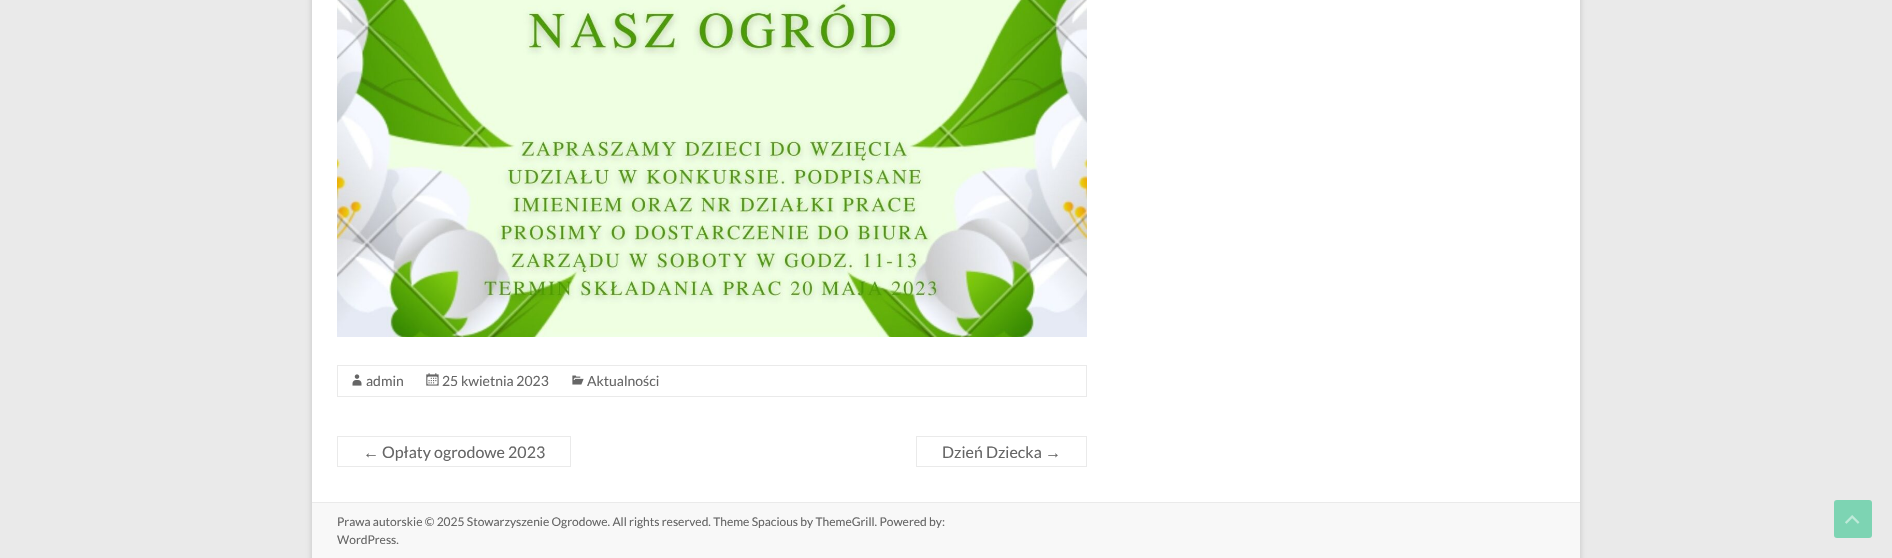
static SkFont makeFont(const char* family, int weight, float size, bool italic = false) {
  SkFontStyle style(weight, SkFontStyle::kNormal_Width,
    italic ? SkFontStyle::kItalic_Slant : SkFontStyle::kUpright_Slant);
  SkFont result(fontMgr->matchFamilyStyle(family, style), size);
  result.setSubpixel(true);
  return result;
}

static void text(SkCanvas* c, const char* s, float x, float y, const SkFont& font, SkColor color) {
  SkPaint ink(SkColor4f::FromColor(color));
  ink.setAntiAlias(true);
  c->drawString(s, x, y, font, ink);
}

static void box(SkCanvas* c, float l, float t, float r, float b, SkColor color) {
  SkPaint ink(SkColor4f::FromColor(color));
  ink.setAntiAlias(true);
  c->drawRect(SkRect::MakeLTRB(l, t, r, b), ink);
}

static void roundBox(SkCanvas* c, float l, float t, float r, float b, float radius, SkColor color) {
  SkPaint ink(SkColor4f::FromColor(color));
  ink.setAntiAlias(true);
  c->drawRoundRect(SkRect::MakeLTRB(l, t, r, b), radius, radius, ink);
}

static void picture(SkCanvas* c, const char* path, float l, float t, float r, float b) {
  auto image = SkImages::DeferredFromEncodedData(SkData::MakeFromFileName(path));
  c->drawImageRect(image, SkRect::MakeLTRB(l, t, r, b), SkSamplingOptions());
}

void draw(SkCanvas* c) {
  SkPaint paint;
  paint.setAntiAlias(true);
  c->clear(0xffeaeaea);
  paint.setColor(0x4d646464);
  paint.setMaskFilter(SkMaskFilter::MakeBlur(kNormal_SkBlurStyle, 3));
  c->drawRect(SkRect::MakeLTRB(312, -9, 1580, 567), paint);
  paint.setMaskFilter(nullptr);
  box(c, 312, 0, 1580, 502, 0xffffffff);
  picture(c, "img_01.png", 337, 0, 1087, 337);
  paint.setStyle(SkPaint::kStroke_Style);
  paint.setStrokeWidth(1);
  paint.setColor(0xffeaeaea);
  c->drawRect(SkRect::MakeLTRB(337.5f, 365.5f, 1086.5f, 396.5f), paint);
  picture(c, "img_02.png", 352, 374, 362, 386);
  SkFont face1 = makeFont("Lato", 400, 14);
  text(c, "admin", 366, 386, face1, 0xff666666);
  picture(c, "img_03.png", 426, 373, 439, 386);
  text(c, "25 kwietnia 2023", 442, 386, face1, 0xff666666);
  picture(c, "img_04.png", 572, 375, 584, 385);
  text(c, "Aktualności", 587, 386, face1, 0xff666666);
  SkFont face2 = makeFont("Liberation Sans", 400, 16);
  text(c, "←", 363, 458, face2, 0xff666666);
  box(c, 337, 466, 379, 467, 0xffeaeaea);
  box(c, 337, 436, 571, 437, 0xffeaeaea);
  box(c, 337, 436, 338, 467, 0xffeaeaea);
  box(c, 570, 436, 571, 467, 0xffeaeaea);
  box(c, 379, 466, 571, 467, 0xffeaeaea);
  SkFont face3 = makeFont("Lato", 400, 16);
  text(c, "Opłaty ogrodowe 2023", 382, 458, face3, 0xff666666);
  text(c, "Dzień Dziecka", 942, 458, face3, 0xff666666);
  box(c, 916, 436, 1087, 437, 0xffeaeaea);
  box(c, 916, 466, 1045, 467, 0xffeaeaea);
  box(c, 916, 436, 917, 467, 0xffeaeaea);
  text(c, "→", 1045, 458, face2, 0xff666666);
  box(c, 1086, 436, 1087, 467, 0xffeaeaea);
  box(c, 1045, 466, 1087, 467, 0xffeaeaea);
  box(c, 312, 503, 1580, 558, 0xfff8f8f8);
  box(c, 312, 502, 1580, 503, 0xffeaeaea);
  SkFont face4 = makeFont("Lato", 400, 12);
  text(c, "Prawa autorskie © 2025 Stowarzyszenie Ogrodowe. All rights reserved. Theme Spacious by ThemeGrill. Powered by:", 337, 526, face4, 0xff666666);
  text(c, "WordPress.", 337, 544, face4, 0xff666666);
  roundBox(c, 1834, 500, 1872, 538, 3, 0xff7dd4b3);
  picture(c, "img_05.png", 1845, 515, 1860, 524);
}
